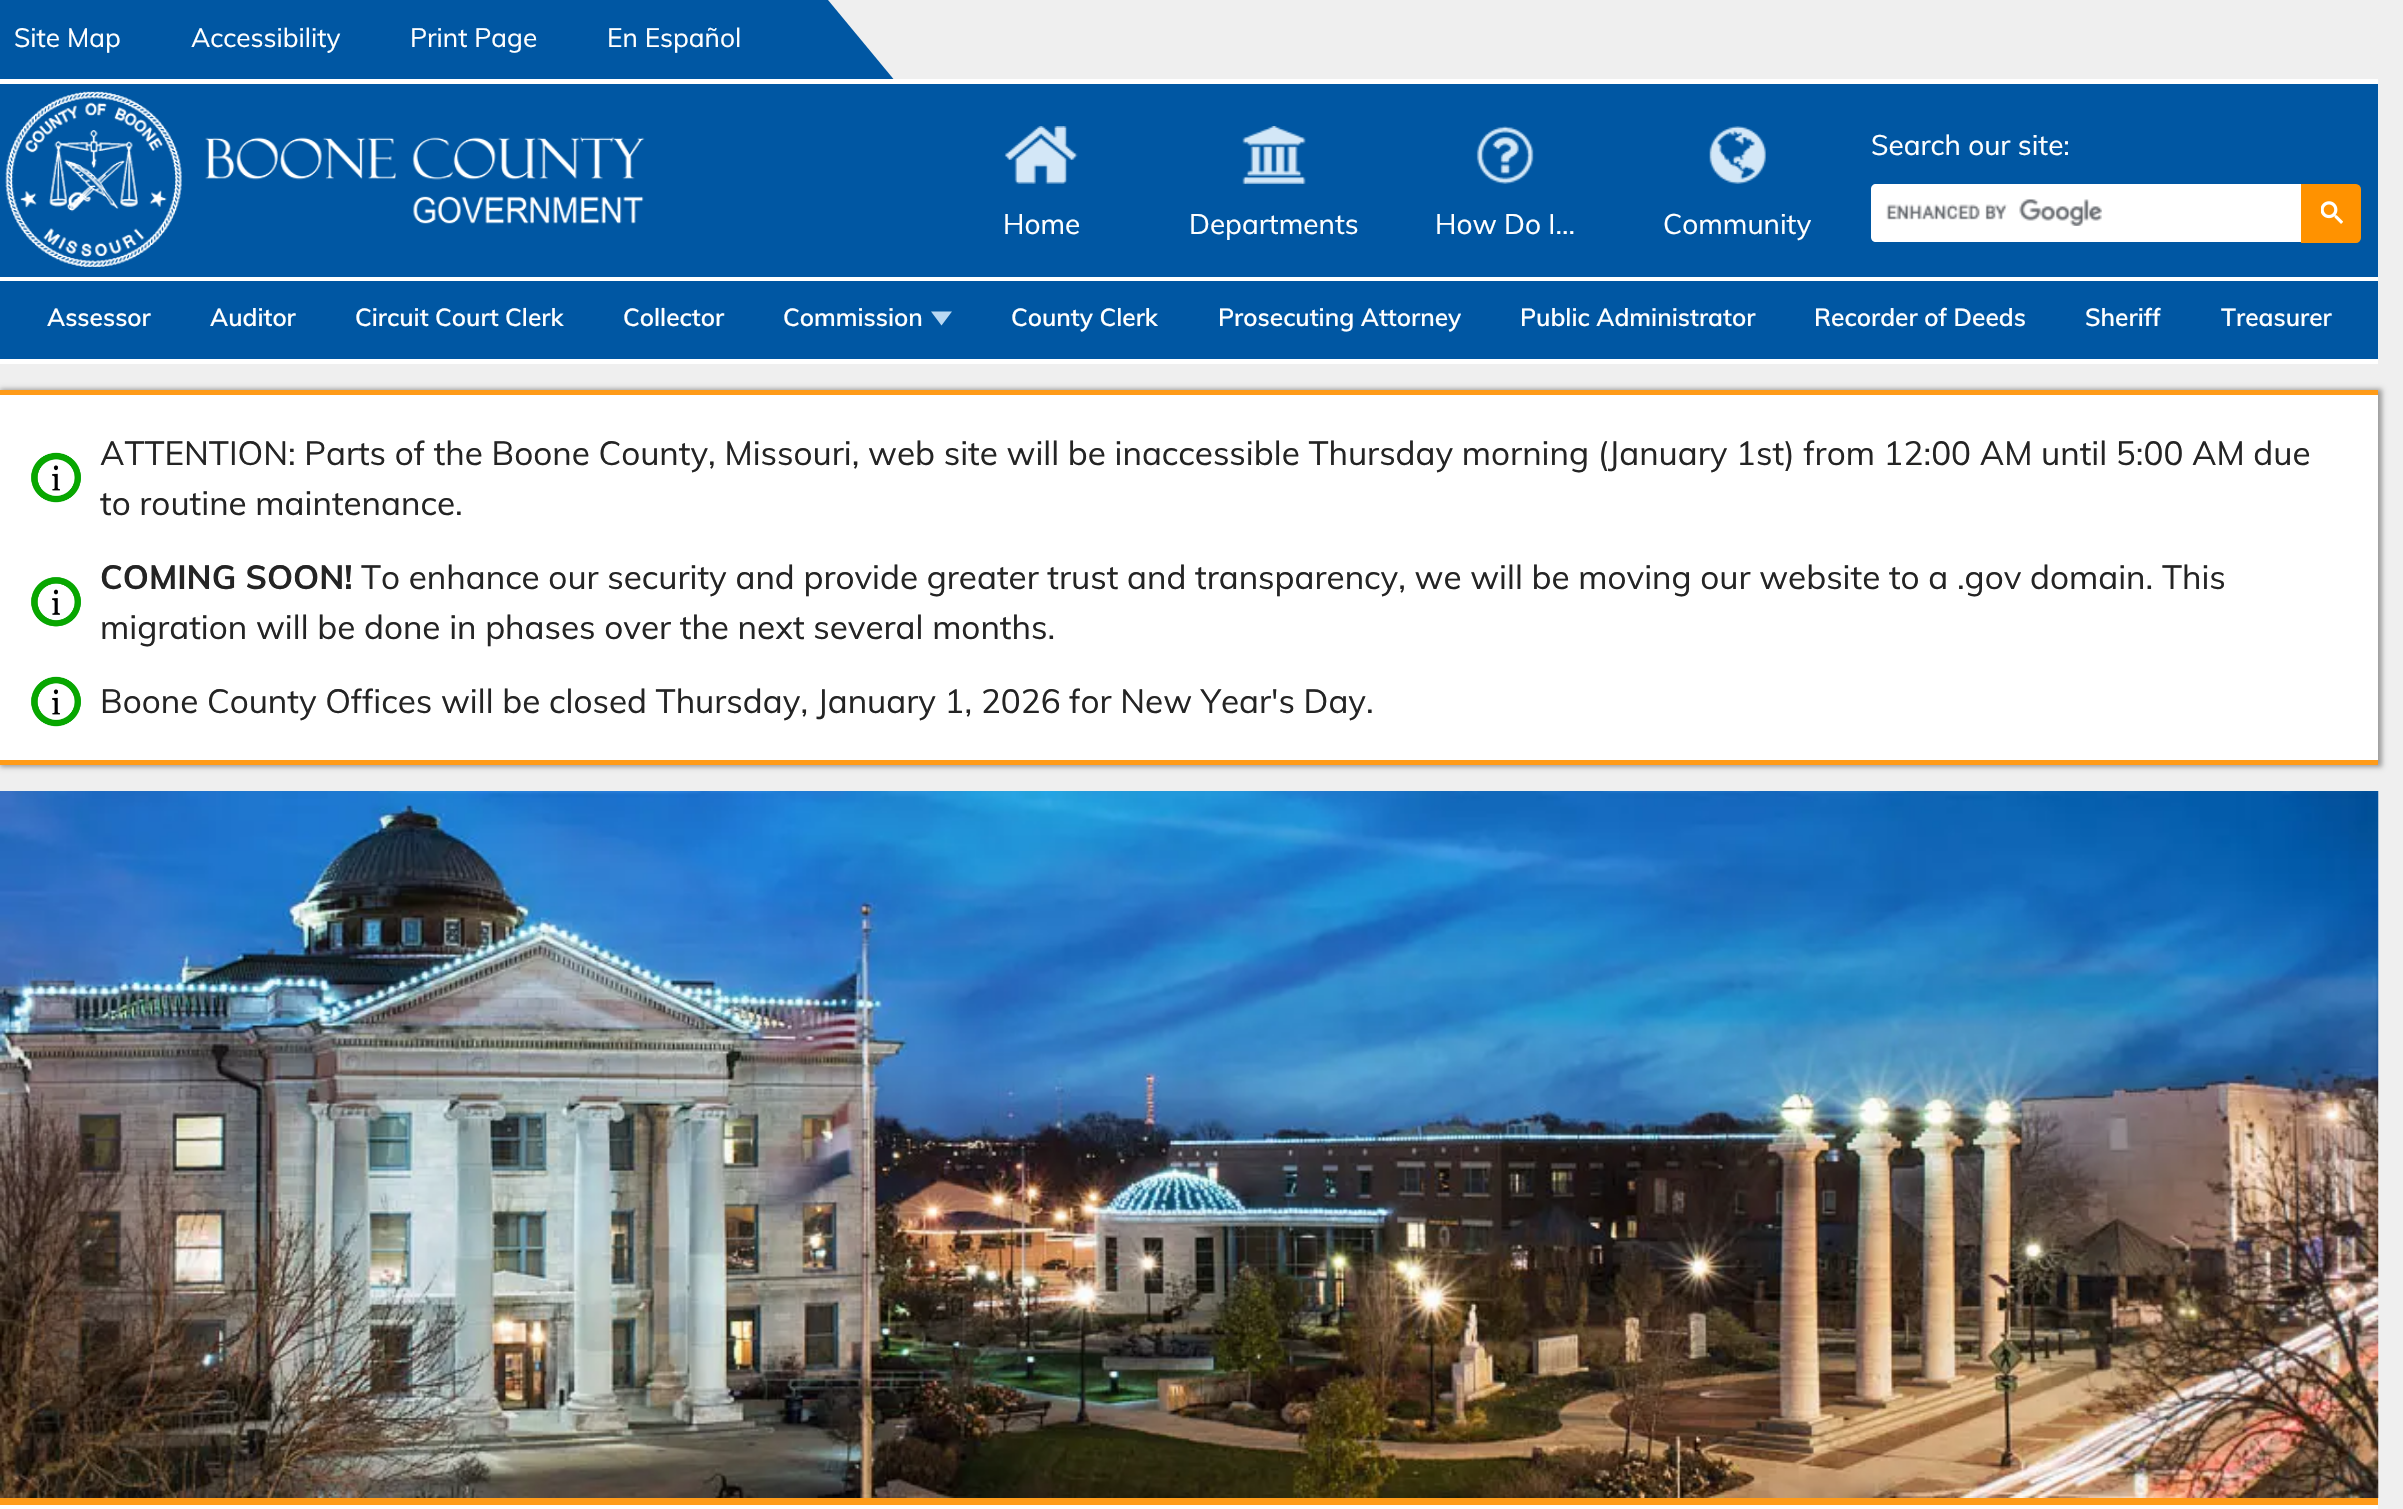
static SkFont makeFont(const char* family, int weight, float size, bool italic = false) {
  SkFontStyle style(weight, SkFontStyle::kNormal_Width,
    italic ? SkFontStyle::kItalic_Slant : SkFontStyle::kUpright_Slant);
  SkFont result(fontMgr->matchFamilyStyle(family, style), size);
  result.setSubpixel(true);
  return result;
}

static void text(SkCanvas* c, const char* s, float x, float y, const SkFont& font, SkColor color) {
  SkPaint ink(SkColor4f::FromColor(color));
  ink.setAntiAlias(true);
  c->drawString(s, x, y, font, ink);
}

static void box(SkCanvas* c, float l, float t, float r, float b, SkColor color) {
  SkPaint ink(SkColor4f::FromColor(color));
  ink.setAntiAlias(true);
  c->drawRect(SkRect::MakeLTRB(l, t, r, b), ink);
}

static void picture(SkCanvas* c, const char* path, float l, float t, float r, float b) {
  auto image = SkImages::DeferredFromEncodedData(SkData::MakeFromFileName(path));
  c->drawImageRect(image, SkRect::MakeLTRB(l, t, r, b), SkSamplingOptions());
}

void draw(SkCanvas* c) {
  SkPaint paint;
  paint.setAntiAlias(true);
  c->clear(0xffefefef);
  box(c, 0, 0, 828, 79, 0xff0057a3);
  SkFont face1 = makeFont("Muli", 400, 26.25f);
  text(c, "Site Map", 14, 47, face1, 0xffffffff);
  text(c, "Accessibility", 191, 47, face1, 0xffffffff);
  text(c, "Print Page", 410, 47, face1, 0xffffffff);
  text(c, "En Español", 607, 47, face1, 0xffffffff);
  paint.setColor(0xff0057a3);
  c->drawPath(SkPathBuilder().moveTo(915, 105).lineTo(723, 105).lineTo(828, 0).close().detach(), paint);
  box(c, 0, 84, 2378, 277, 0xff0057a3);
  box(c, 0, 79, 2378, 84, 0xffffffff);
  box(c, 0, 277, 2378, 281, 0xffffffff);
  picture(c, "img_01.png", 5, 91, 645, 267);
  SkFont face2 = makeFont("Muli", 400, 28);
  text(c, "Search our site:", 1871, 155, face2, 0xffffffff);
  paint.setColor(0xffffffff);
  c->drawPath(SkPathBuilder().moveTo(1876, 184).lineTo(2301, 184).lineTo(2301, 242).lineTo(1876, 242).cubicTo(1873, 242, 1871, 240, 1871, 237).lineTo(1871, 189).cubicTo(1871, 186, 1873, 184, 1876, 184).close().detach(), paint);
  picture(c, "img_02.png", 1886, 199, 2102, 226);
  paint.setColor(0xffff9200);
  c->drawPath(SkPathBuilder().moveTo(2302, 185).lineTo(2356, 185).cubicTo(2358, 185, 2360, 187, 2360, 189).lineTo(2360, 238).cubicTo(2360, 240, 2358, 242, 2356, 242).lineTo(2302, 242).close().detach(), paint);
  paint.setStyle(SkPaint::kStroke_Style);
  paint.setStrokeWidth(2);
  c->drawPath(SkPathBuilder().moveTo(2302, 185).lineTo(2356, 185).cubicTo(2358, 185, 2360, 187, 2360, 189).lineTo(2360, 238).cubicTo(2360, 240, 2358, 242, 2356, 242).lineTo(2302, 242).close().detach(), paint);
  picture(c, "img_03.png", 2321, 201, 2343, 224);
  picture(c, "img_04.png", 1004, 126, 1078, 184);
  text(c, "Home", 1003, 234, face2, 0xffffffff);
  picture(c, "img_05.png", 1242, 126, 1306, 184);
  text(c, "Departments", 1189, 234, face2, 0xffffffff);
  picture(c, "img_06.png", 1476, 126, 1534, 184);
  text(c, "How Do I...", 1435, 234, face2, 0xffffffff);
  picture(c, "img_07.png", 1709, 126, 1766, 184);
  text(c, "Community", 1663, 234, face2, 0xffffffff);
  box(c, 0, 281, 2378, 359, 0xff0057a3);
  box(c, 0, 359, 2378, 364, 0xffffffff);
  SkFont face3 = makeFont("Muli", 600, 24.5f);
  text(c, "Assessor", 47, 326, face3, 0xffffffff);
  text(c, "Auditor", 210, 326, face3, 0xffffffff);
  text(c, "Circuit Court Clerk", 355, 326, face3, 0xffffffff);
  text(c, "Collector", 623, 326, face3, 0xffffffff);
  text(c, "Commission", 783, 326, face3, 0xffffffff);
  paint.setStyle(SkPaint::kFill_Style);
  paint.setColor(0xffb8d8f3);
  c->drawPath(SkPathBuilder().moveTo(931, 311.5f).lineTo(952, 311.5f).lineTo(941.5f, 325.5f).close().detach(), paint);
  text(c, "County Clerk", 1011, 326, face3, 0xffffffff);
  text(c, "Prosecuting Attorney", 1218, 326, face3, 0xffffffff);
  text(c, "Public Administrator", 1520, 326, face3, 0xffffffff);
  text(c, "Recorder of Deeds", 1814, 326, face3, 0xffffffff);
  text(c, "Sheriff", 2085, 326, face3, 0xffffffff);
  text(c, "Treasurer", 2221, 326, face3, 0xffffffff);
  paint.setColor(0x59000000);
  paint.setMaskFilter(SkMaskFilter::MakeBlur(kNormal_SkBlurStyle, 2.5f));
  c->drawRect(SkRect::MakeLTRB(0, 389, 2382, 767), paint);
  paint.setMaskFilter(nullptr);
  box(c, 0, 395, 2378, 760, 0xffffffff);
  box(c, 0, 390, 2378, 395, 0xffff9b18);
  box(c, 0, 760, 2378, 765, 0xffff9b18);
  picture(c, "img_08.png", 31, 452, 81, 503);
  SkFont face4 = makeFont("Muli", 400, 33.25f);
  text(c, "ATTENTION: Parts of the Boone County, Missouri, web site will be inaccessible Thursday morning (January 1st) from 12:00 AM until 5:00 AM due", 100, 465, face4, 0xff242424);
  text(c, "to routine maintenance.", 100, 515, face4, 0xff242424);
  picture(c, "img_09.png", 31, 577, 81, 627);
  SkFont face5 = makeFont("Muli", 700, 33.25f);
  text(c, "COMING SOON!", 100, 589, face5, 0xff242424);
  text(c, "To enhance our security and provide greater trust and transparency, we will be moving our website to a .gov domain. This", 361, 589, face4, 0xff242424);
  text(c, "migration will be done in phases over the next several months.", 100, 639, face4, 0xff242424);
  picture(c, "img_08.png", 31, 676, 81, 727);
  text(c, "Boone County Offices will be closed Thursday, January 1, 2026 for New Year's Day.", 100, 713, face4, 0xff242424);
  picture(c, "img_10.png", 0, 791, 2379, 1498);
  box(c, 0, 1505, 2378, 1509, 0xffffffff);
  box(c, 0, 1498, 2378, 1505, 0xffff9b18);
}
